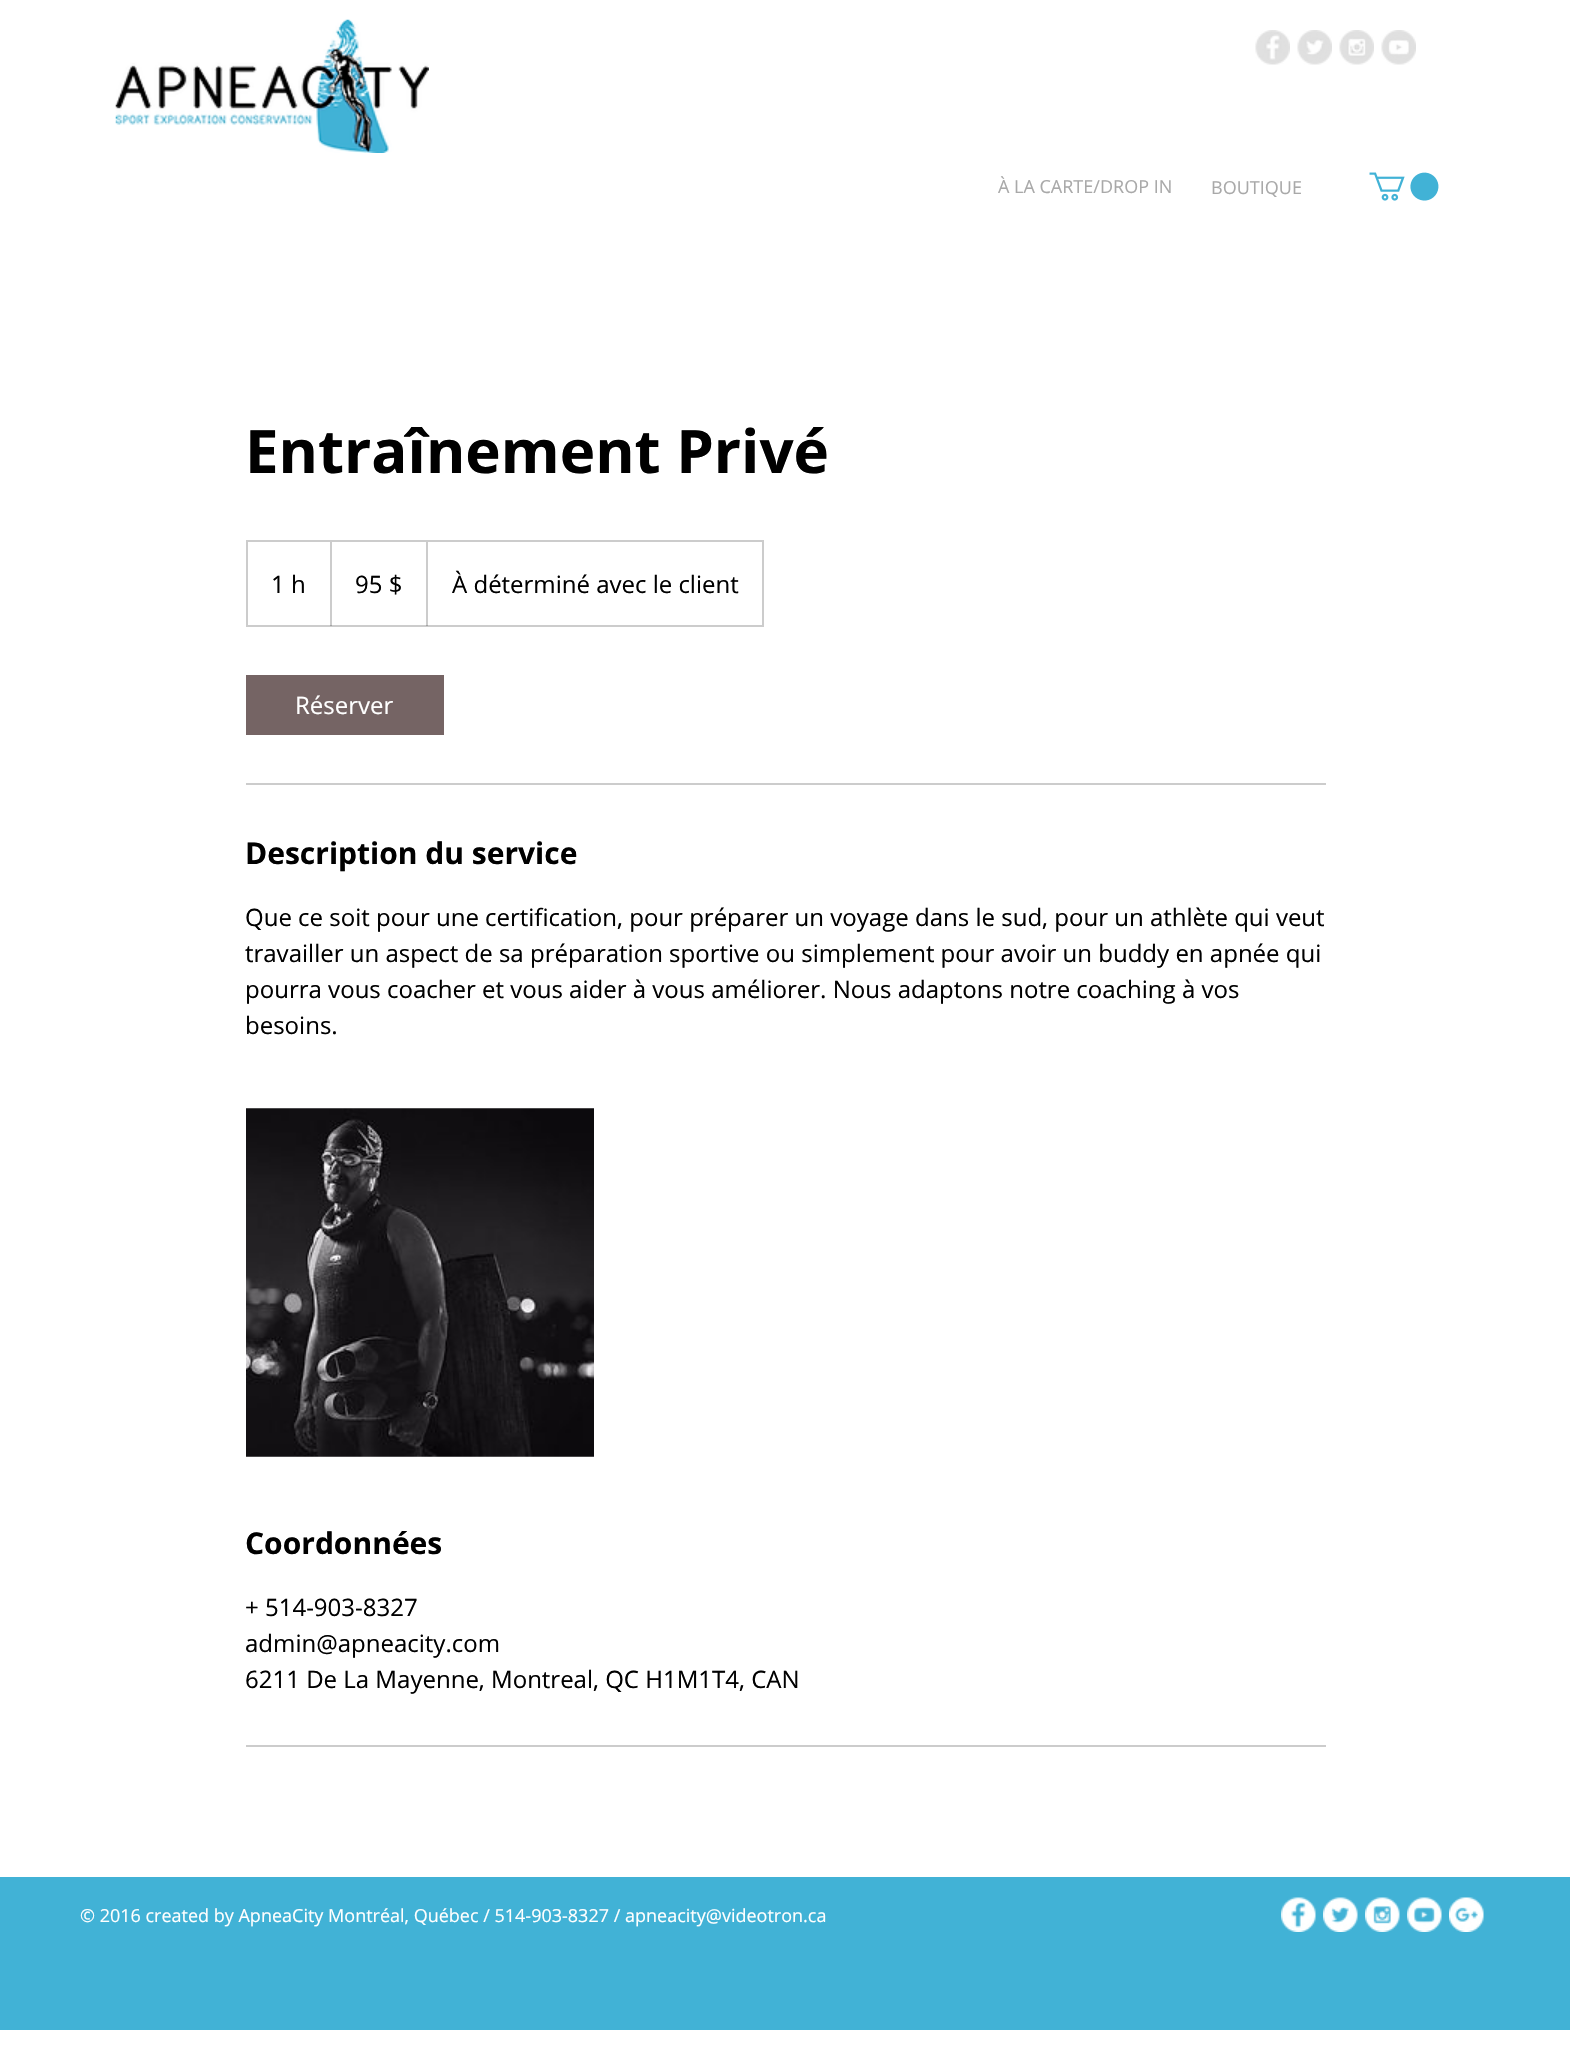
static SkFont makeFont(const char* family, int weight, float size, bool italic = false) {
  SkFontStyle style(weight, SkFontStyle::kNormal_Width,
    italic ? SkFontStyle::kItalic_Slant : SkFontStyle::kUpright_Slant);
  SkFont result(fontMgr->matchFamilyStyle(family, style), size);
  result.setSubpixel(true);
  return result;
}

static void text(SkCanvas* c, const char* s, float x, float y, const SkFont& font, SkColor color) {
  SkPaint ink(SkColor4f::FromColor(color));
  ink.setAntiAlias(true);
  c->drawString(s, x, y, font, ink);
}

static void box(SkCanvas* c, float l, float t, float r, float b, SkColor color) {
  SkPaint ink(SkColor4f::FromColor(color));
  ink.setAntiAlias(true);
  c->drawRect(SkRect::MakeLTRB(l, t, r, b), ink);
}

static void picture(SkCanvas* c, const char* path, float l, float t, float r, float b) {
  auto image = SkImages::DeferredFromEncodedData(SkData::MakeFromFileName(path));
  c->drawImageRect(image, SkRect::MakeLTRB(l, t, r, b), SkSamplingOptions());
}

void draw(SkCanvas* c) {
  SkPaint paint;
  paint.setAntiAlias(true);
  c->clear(0xffffffff);
  picture(c, "img_01.png", 115, 19, 429, 153);
  picture(c, "img_02.png", 1255, 30, 1290, 65);
  picture(c, "img_03.png", 1297, 30, 1332, 65);
  picture(c, "img_04.png", 1339, 30, 1374, 65);
  picture(c, "img_05.png", 1381, 30, 1416, 65);
  SkFont face1 = makeFont("Open Sans", 400, 18);
  text(c, "À LA CARTE/DROP IN", 998, 193, face1, 0xffa9a9a9);
  text(c, "BOUTIQUE", 1211, 194, face1, 0xffa9a9a9);
  picture(c, "img_06.png", 1369, 172, 1439, 201);
  SkFont face2 = makeFont("Open Sans", 700, 60);
  text(c, "Entraînement Privé", 245, 473, face2, 0xff000000);
  paint.setStyle(SkPaint::kStroke_Style);
  paint.setStrokeWidth(2);
  paint.setColor(0xffcccccc);
  c->drawRect(SkRect::MakeLTRB(247, 541, 763, 626), paint);
  SkFont face3 = makeFont("Open Sans", 400, 24);
  text(c, "1 h", 271, 593, face3, 0xff000000);
  c->save();
  c->clipRect(SkRect::MakeLTRB(248, 542, 762, 626));
  paint.setStyle(SkPaint::kFill_Style);
  paint.setColor(0x33000000);
  c->drawPath(SkPathBuilder().moveTo(330, 626).lineTo(330, 540).lineTo(332, 542).lineTo(332, 626).close().detach(), paint);
  c->restore();
  text(c, "95 $", 355, 593, face3, 0xff000000);
  c->save();
  c->clipRect(SkRect::MakeLTRB(248, 542, 762, 626));
  c->drawPath(SkPathBuilder().moveTo(426, 626).lineTo(426, 540).lineTo(428, 542).lineTo(428, 626).close().detach(), paint);
  c->restore();
  text(c, "À déterminé avec le client", 452, 593, face3, 0xff000000);
  box(c, 246, 675, 444, 735, 0xff756464);
  text(c, "Réserver", 295, 714, face3, 0xffffffff);
  box(c, 246, 783, 1326, 785, 0xffcccccc);
  SkFont face4 = makeFont("Open Sans", 700, 30);
  text(c, "Description du service", 245, 864, face4, 0xff000000);
  text(c, "Que ce soit pour une certification, pour préparer un voyage dans le sud, pour un athlète qui veut", 245, 926, face3, 0xff000000);
  text(c, "travailler un aspect de sa préparation sportive ou simplement pour avoir un buddy en apnée qui", 245, 962, face3, 0xff000000);
  text(c, "pourra vous coacher et vous aider à vous améliorer. Nous adaptons notre coaching à vos", 245, 998, face3, 0xff000000);
  text(c, "besoins.", 245, 1034, face3, 0xff000000);
  picture(c, "img_07.png", 246, 1108, 594, 1457);
  picture(c, "img_08.png", 246, 1108, 594, 1457);
  text(c, "Coordonnées", 245, 1554, face4, 0xff000000);
  text(c, "+ 514-903-8327", 245, 1616, face3, 0xff000000);
  text(c, "admin@apneacity.com", 245, 1652, face3, 0xff000000);
  text(c, "6211 De La Mayenne, Montreal, QC H1M1T4, CAN", 245, 1688, face3, 0xff000000);
  box(c, 246, 1745, 1326, 1747, 0xffcccccc);
  box(c, 0, 1877, 1570, 2030, 0xff41b2d6);
  text(c, "© 2016 created by ApneaCity Montréal, Québec / 514-903-8327 / apneacity@videotron.ca", 80, 1922, face1, 0xffffffff);
  picture(c, "img_09.png", 1281, 1897, 1316, 1932);
  picture(c, "img_10.png", 1323, 1897, 1358, 1932);
  picture(c, "img_11.png", 1365, 1897, 1400, 1932);
  picture(c, "img_12.png", 1407, 1897, 1442, 1932);
  picture(c, "img_13.png", 1449, 1897, 1484, 1932);
}
